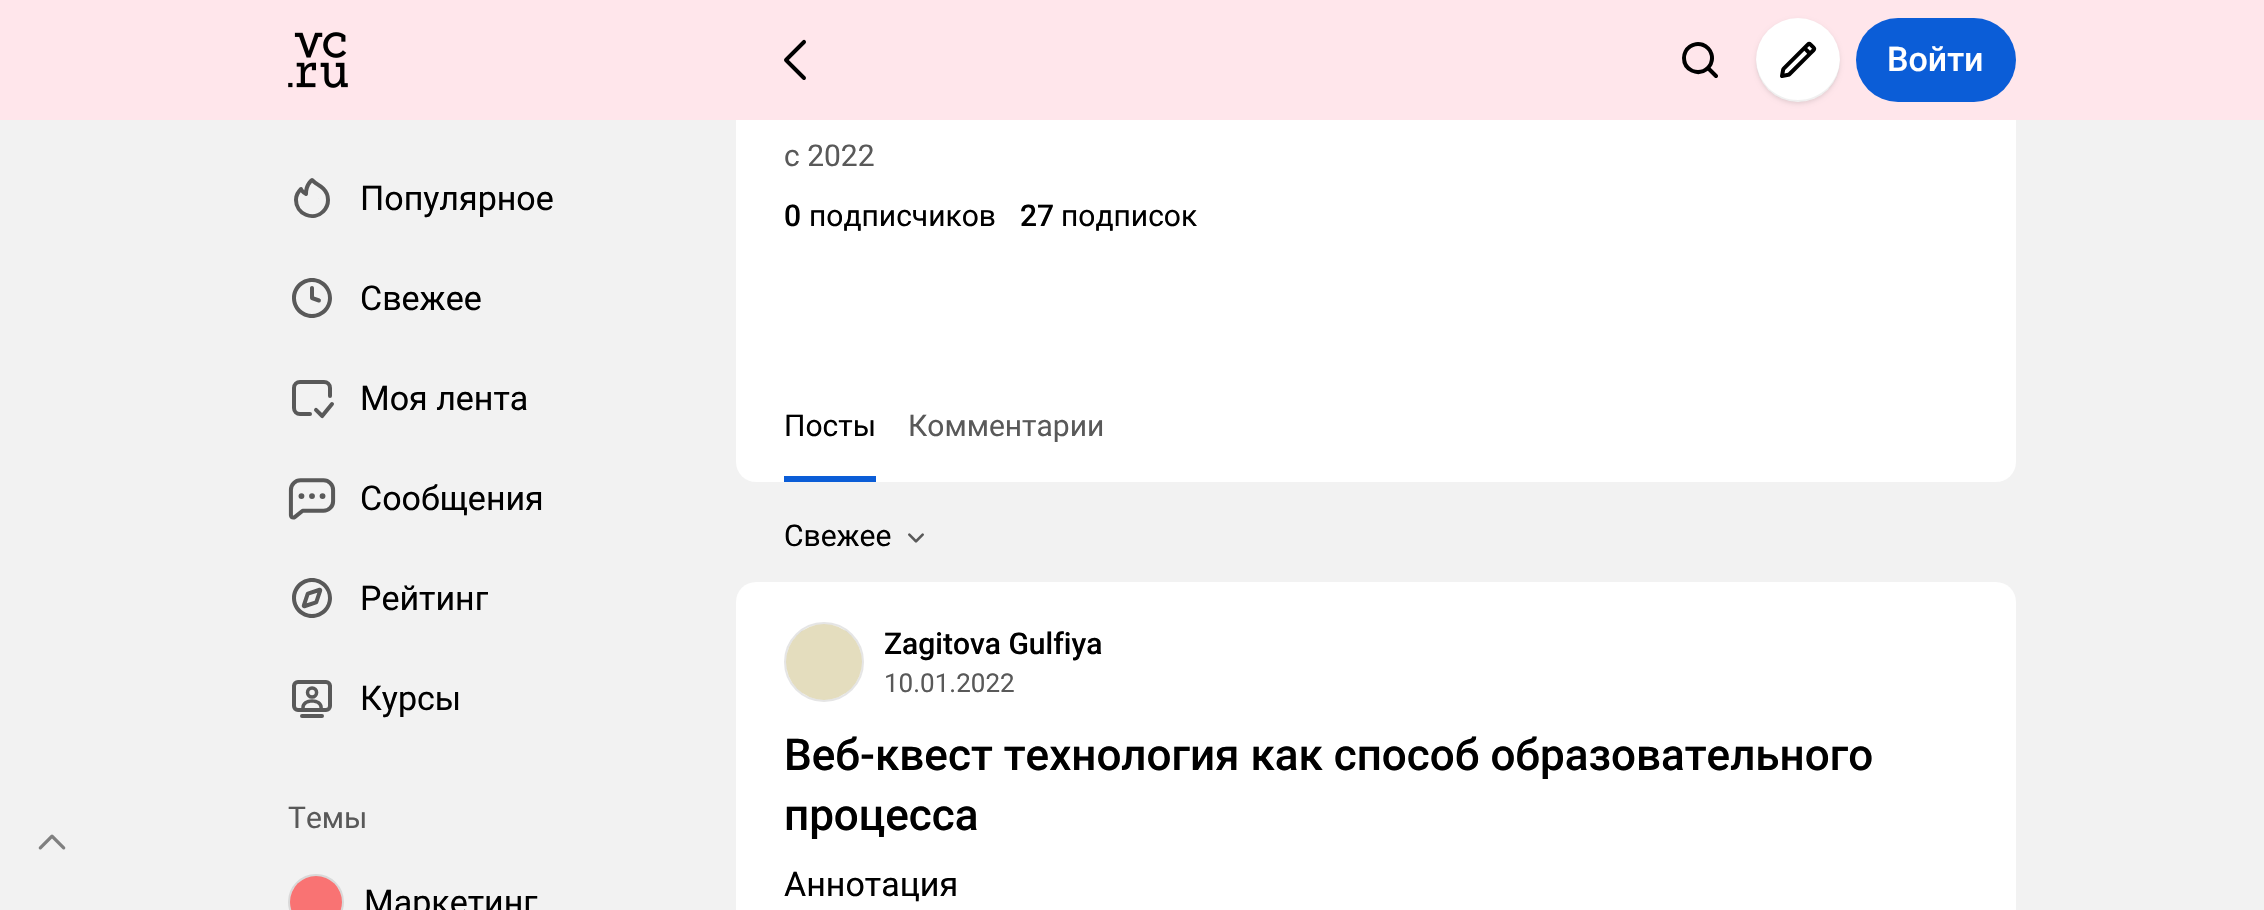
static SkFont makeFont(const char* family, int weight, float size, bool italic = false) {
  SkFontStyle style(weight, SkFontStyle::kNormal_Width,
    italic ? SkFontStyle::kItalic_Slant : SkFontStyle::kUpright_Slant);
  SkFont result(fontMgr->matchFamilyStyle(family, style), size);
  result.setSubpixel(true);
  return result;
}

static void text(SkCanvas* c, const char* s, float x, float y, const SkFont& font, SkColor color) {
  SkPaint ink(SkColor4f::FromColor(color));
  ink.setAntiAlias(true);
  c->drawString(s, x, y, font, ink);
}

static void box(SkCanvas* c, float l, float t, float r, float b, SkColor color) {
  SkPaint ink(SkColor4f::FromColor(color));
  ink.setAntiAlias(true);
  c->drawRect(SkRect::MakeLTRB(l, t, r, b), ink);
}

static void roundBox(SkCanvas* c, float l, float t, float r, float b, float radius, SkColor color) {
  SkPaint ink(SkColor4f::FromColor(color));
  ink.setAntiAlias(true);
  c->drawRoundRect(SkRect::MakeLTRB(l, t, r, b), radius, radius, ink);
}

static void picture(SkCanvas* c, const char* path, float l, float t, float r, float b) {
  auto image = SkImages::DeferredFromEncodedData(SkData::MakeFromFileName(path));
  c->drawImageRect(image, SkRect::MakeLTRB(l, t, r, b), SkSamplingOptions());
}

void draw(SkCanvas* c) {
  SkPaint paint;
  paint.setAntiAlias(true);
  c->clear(0xfff2f2f2);
  roundBox(c, 736, -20, 2016, 482, 20, 0xffffffff);
  box(c, 0, 0, 2264, 120, 0xffffe6eb);
  picture(c, "img_01.png", 288, 32, 348, 88);
  picture(c, "img_02.png", 784, 39, 806, 80);
  picture(c, "img_03.png", 1682, 42, 1718, 78);
  paint.setColor(0x1a000000);
  paint.setMaskFilter(SkMaskFilter::MakeBlur(kNormal_SkBlurStyle, 2));
  c->drawRoundRect(SkRect::MakeLTRB(1756, 20, 1840, 104), 42, 42, paint);
  paint.setMaskFilter(nullptr);
  paint.setColor(0xffffffff);
  c->drawCircle(1798, 60, 42, paint);
  paint.setColor(0x0f000000);
  c->drawPath(SkPathBuilder().moveTo(1756, 59).cubicTo(1756, 68, 1758, 76, 1763, 83).cubicTo(1786, 118, 1841, 101, 1840, 59).cubicTo(1839, 82, 1821, 100, 1798, 100).cubicTo(1775, 100, 1757, 82, 1756, 59).close().detach(), paint);
  picture(c, "img_04.png", 1780, 41, 1817, 78);
  roundBox(c, 1856, 18, 2016, 102, 42, 0xff0b5dd7);
  SkFont face1 = makeFont("Roboto", 500, 34);
  text(c, "Войти", 1887, 71, face1, 0xffffffff);
  picture(c, "img_05.png", 38, 834, 66, 850);
  picture(c, "img_06.png", 294, 178, 330, 218);
  SkFont face2 = makeFont("Roboto", 400, 34);
  text(c, "Популярное", 360, 210, face2, 0xff000000);
  picture(c, "img_07.png", 292, 278, 332, 318);
  text(c, "Свежее", 360, 310, face2, 0xff000000);
  picture(c, "img_08.png", 292, 380, 334, 419);
  text(c, "Моя лента", 360, 410, face2, 0xff000000);
  picture(c, "img_09.png", 288, 478, 336, 520);
  text(c, "Сообщения", 360, 510, face2, 0xff000000);
  picture(c, "img_10.png", 292, 578, 332, 618);
  c->save();
  c->clipRect(SkRect::MakeLTRB(360, 572, 488, 624));
  text(c, "Рейтинг", 360, 610, face2, 0xff000000);
  c->restore();
  picture(c, "img_11.png", 292, 680, 332, 718);
  text(c, "Курсы", 360, 710, face2, 0xff000000);
  SkFont face3 = makeFont("Roboto", 400, 30);
  text(c, "Темы", 288, 828, face3, 0xff595959);
  paint.setColor(0xfff97373);
  c->drawCircle(316, 902, 26, paint);
  paint.setStyle(SkPaint::kStroke_Style);
  paint.setStrokeWidth(2);
  paint.setColor(0x1a000000);
  c->drawCircle(316, 902, 27, paint);
  text(c, "Маркетинг", 364, 914, face2, 0xff000000);
  text(c, "с 2022", 784, 166, face3, 0xff595959);
  SkFont face4 = makeFont("Roboto", 500, 30);
  text(c, "0", 784, 226, face4, 0xff000000);
  text(c, "подписчиков", 809, 226, face3, 0xff000000);
  text(c, "27", 1020, 226, face4, 0xff000000);
  text(c, "подписок", 1061, 226, face3, 0xff000000);
  text(c, "Посты", 784, 436, face3, 0xff000000);
  text(c, "Комментарии", 908, 436, face3, 0xff595959);
  box(c, 784, 476, 876, 482, 0xff0b5dd7);
  text(c, "Свежее", 784, 546, face3, 0xff000000);
  picture(c, "img_12.png", 908, 533, 924, 543);
  roundBox(c, 736, 582, 2016, 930, 20, 0xffffffff);
  paint.setStyle(SkPaint::kFill_Style);
  paint.setColor(0xffe4ddbe);
  c->drawCircle(824, 662, 38, paint);
  paint.setStyle(SkPaint::kStroke_Style);
  paint.setColor(0x1a000000);
  c->drawCircle(824, 662, 39, paint);
  text(c, "Zagitova Gulfiya", 884, 654, face4, 0xff000000);
  SkFont face5 = makeFont("Roboto", 400, 26);
  text(c, "10.01.2022", 884, 692, face5, 0xff595959);
  SkFont face6 = makeFont("Roboto", 500, 44);
  text(c, "Веб-квест технология как способ образовательного", 784, 770, face6, 0xff000000);
  text(c, "процесса", 784, 830, face6, 0xff000000);
  text(c, "Аннотация", 784, 896, face2, 0xff000000);
}
